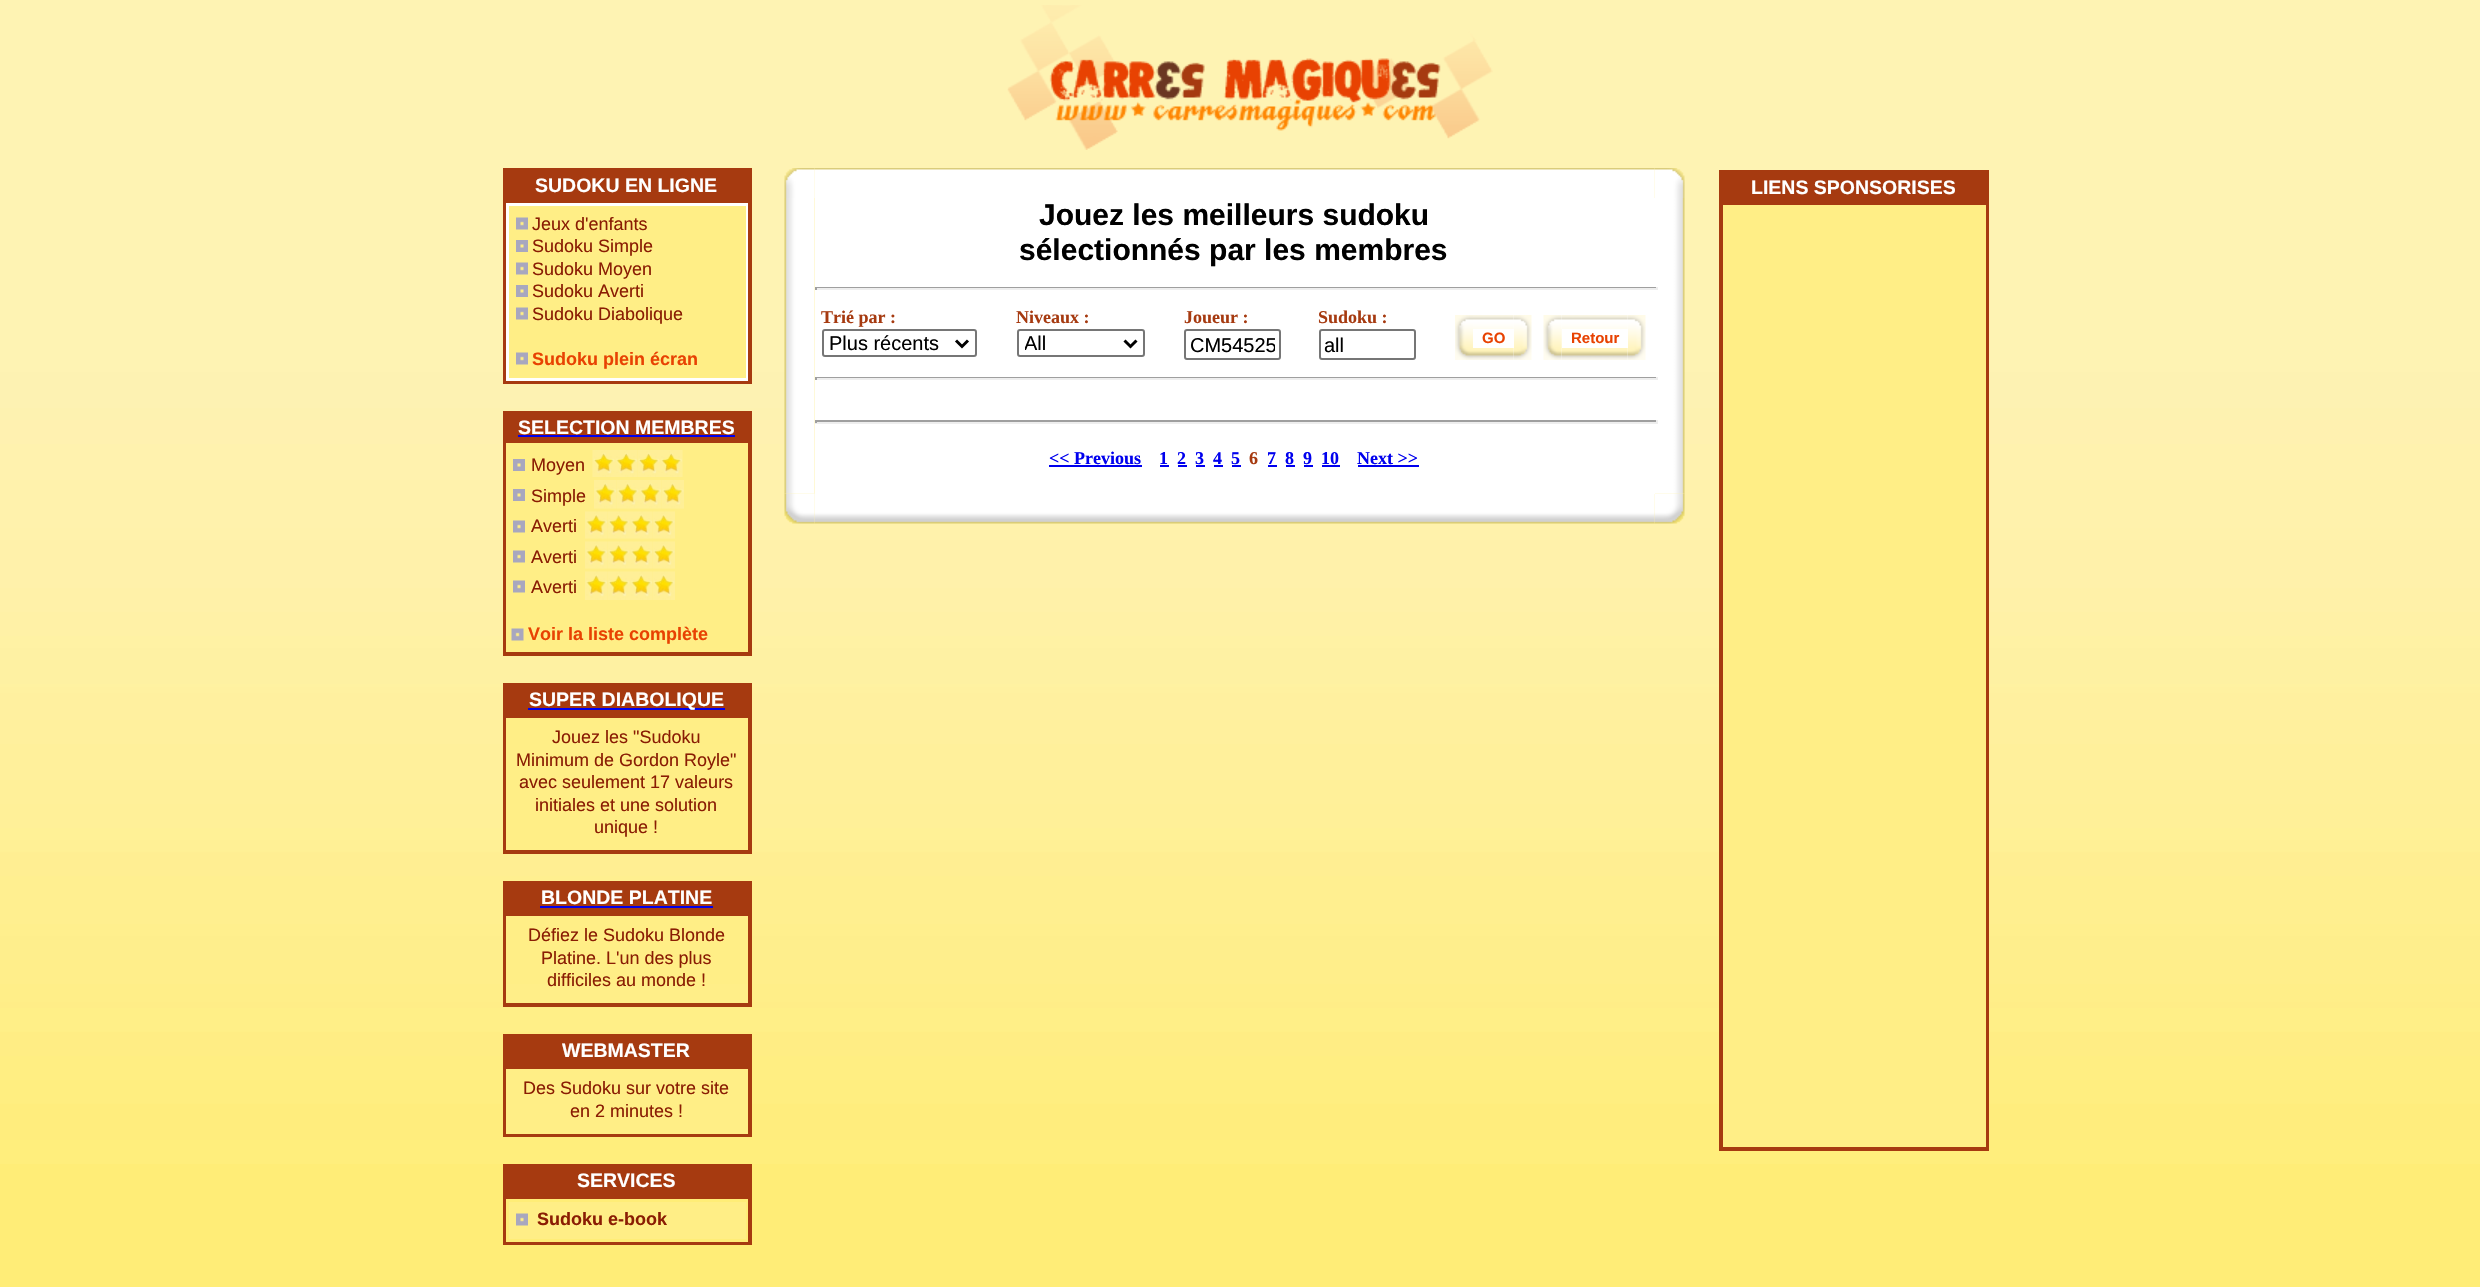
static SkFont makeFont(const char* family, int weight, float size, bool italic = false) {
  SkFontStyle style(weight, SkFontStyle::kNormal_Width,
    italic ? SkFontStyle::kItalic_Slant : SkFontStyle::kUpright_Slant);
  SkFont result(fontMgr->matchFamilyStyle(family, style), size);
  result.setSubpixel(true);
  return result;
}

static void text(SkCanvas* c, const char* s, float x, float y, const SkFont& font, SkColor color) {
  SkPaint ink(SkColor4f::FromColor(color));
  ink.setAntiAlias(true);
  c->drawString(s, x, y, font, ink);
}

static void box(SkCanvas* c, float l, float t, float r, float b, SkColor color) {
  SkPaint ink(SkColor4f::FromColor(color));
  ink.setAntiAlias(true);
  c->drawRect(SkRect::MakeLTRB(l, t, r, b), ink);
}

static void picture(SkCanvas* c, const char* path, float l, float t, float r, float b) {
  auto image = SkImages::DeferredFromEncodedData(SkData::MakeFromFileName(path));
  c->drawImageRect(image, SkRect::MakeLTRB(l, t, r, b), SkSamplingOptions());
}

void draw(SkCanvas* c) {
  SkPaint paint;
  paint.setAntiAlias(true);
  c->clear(0xffffed77);
  picture(c, "img_01.png", 0, 0, 2480, 1164);
  picture(c, "img_02.png", 1007, 5, 1493, 150);
  paint.setStyle(SkPaint::kStroke_Style);
  paint.setStrokeWidth(2);
  paint.setColor(0xffa63a10);
  c->drawRect(SkRect::MakeLTRB(504, 169, 751, 383), paint);
  box(c, 505, 170, 750, 201, 0xffa63a10);
  SkFont face1 = makeFont("Liberation Sans", 700, 19.5f);
  text(c, "SUDOKU EN LIGNE", 535, 192, face1, 0xffffffff);
  paint.setStyle(SkPaint::kFill_Style);
  paint.setColor(0xffffffff);
  c->drawRect(SkRect::MakeLTRB(505, 202, 749, 382), paint);
  paint.setStyle(SkPaint::kStroke_Style);
  paint.setColor(0xffa63a10);
  c->drawRect(SkRect::MakeLTRB(505, 202, 749, 382), paint);
  box(c, 509, 206, 746, 378, 0xffffee86);
  picture(c, "img_03.png", 516, 217, 528, 230);
  SkFont face2 = makeFont("Liberation Sans", 400, 18);
  text(c, "Jeux d'enfants", 532, 230, face2, 0xff8a1d03);
  picture(c, "img_04.png", 516, 240, 528, 252);
  text(c, "Sudoku Simple", 532, 252, face2, 0xff8a1d03);
  picture(c, "img_03.png", 516, 262, 528, 275);
  text(c, "Sudoku Moyen", 532, 275, face2, 0xff8a1d03);
  picture(c, "img_04.png", 516, 285, 528, 297);
  text(c, "Sudoku Averti", 532, 297, face2, 0xff8a1d03);
  picture(c, "img_03.png", 516, 307, 528, 320);
  text(c, "Sudoku Diabolique", 532, 320, face2, 0xff8a1d03);
  picture(c, "img_03.png", 516, 352, 528, 365);
  SkFont face3 = makeFont("Liberation Sans", 700, 18);
  text(c, "Sudoku plein écran", 532, 365, face3, 0xffe84202);
  c->drawRect(SkRect::MakeLTRB(504, 412, 751, 655), paint);
  box(c, 505, 413, 750, 441, 0xffa63a10);
  text(c, "SELECTION MEMBRES", 518, 434, face1, 0xffffffff);
  box(c, 518, 435, 735, 437, 0xff0000ee);
  paint.setStyle(SkPaint::kFill_Style);
  paint.setColor(0xffffee86);
  c->drawRect(SkRect::MakeLTRB(505, 442, 749, 653), paint);
  paint.setStyle(SkPaint::kStroke_Style);
  paint.setColor(0xffa63a10);
  c->drawRect(SkRect::MakeLTRB(505, 442, 749, 653), paint);
  picture(c, "img_04.png", 513, 459, 525, 471);
  text(c, "Moyen", 531, 471, face2, 0xff8a1d03);
  picture(c, "img_05.png", 592, 450, 615, 477);
  picture(c, "img_06.png", 615, 450, 638, 477);
  picture(c, "img_07.png", 637, 450, 660, 477);
  picture(c, "img_06.png", 660, 450, 683, 477);
  picture(c, "img_04.png", 513, 489, 525, 501);
  text(c, "Simple", 531, 502, face2, 0xff8a1d03);
  picture(c, "img_08.png", 594, 480, 617, 509);
  picture(c, "img_09.png", 616, 480, 639, 509);
  picture(c, "img_08.png", 639, 480, 662, 509);
  picture(c, "img_10.png", 661, 480, 684, 509);
  picture(c, "img_03.png", 513, 520, 525, 533);
  text(c, "Averti", 531, 532, face2, 0xff8a1d03);
  picture(c, "img_11.png", 585, 511, 608, 539);
  picture(c, "img_12.png", 607, 511, 630, 539);
  picture(c, "img_11.png", 630, 511, 653, 539);
  picture(c, "img_12.png", 652, 511, 675, 539);
  picture(c, "img_03.png", 513, 550, 525, 563);
  text(c, "Averti", 531, 563, face2, 0xff8a1d03);
  picture(c, "img_13.png", 585, 541, 608, 569);
  picture(c, "img_14.png", 607, 541, 630, 569);
  picture(c, "img_13.png", 630, 541, 653, 569);
  picture(c, "img_14.png", 652, 541, 675, 569);
  picture(c, "img_03.png", 513, 580, 525, 593);
  text(c, "Averti", 531, 593, face2, 0xff8a1d03);
  picture(c, "img_15.png", 585, 571, 608, 600);
  picture(c, "img_16.png", 607, 571, 630, 600);
  picture(c, "img_15.png", 630, 571, 653, 600);
  picture(c, "img_16.png", 652, 571, 675, 600);
  picture(c, "img_17.png", 511, 628, 524, 641);
  text(c, "Voir la liste complète", 528, 640, face3, 0xffe84202);
  c->drawRect(SkRect::MakeLTRB(504, 684, 751, 853), paint);
  box(c, 505, 685, 750, 716, 0xffa63a10);
  box(c, 528, 708, 725, 710, 0xff0000ee);
  text(c, "SUPER DIABOLIQUE", 529, 706, face1, 0xffffffff);
  paint.setStyle(SkPaint::kFill_Style);
  paint.setColor(0xffffee86);
  c->drawRect(SkRect::MakeLTRB(505, 717, 749, 851), paint);
  paint.setStyle(SkPaint::kStroke_Style);
  paint.setColor(0xffa63a10);
  c->drawRect(SkRect::MakeLTRB(505, 717, 749, 851), paint);
  text(c, "Jouez les \"Sudoku", 552, 743, face2, 0xff8a1d03);
  text(c, "Minimum de Gordon Royle\"", 516, 766, face2, 0xff8a1d03);
  text(c, "avec seulement 17 valeurs", 519, 788, face2, 0xff8a1d03);
  text(c, "initiales et une solution", 535, 811, face2, 0xff8a1d03);
  text(c, "unique !", 594, 833, face2, 0xff8a1d03);
  c->drawRect(SkRect::MakeLTRB(504, 882, 751, 1006), paint);
  box(c, 505, 883, 750, 914, 0xffa63a10);
  text(c, "BLONDE PLATINE", 541, 904, face1, 0xffffffff);
  box(c, 540, 906, 713, 908, 0xff0000ee);
  box(c, 506, 916, 748, 984, 0xffffee86);
  c->drawRect(SkRect::MakeLTRB(505, 915, 749, 1004), paint);
  text(c, "Défiez le Sudoku Blonde", 528, 941, face2, 0xff8a1d03);
  text(c, "Platine. L'un des plus", 541, 964, face2, 0xff8a1d03);
  text(c, "difficiles au monde !", 547, 986, face2, 0xff8a1d03);
  c->drawRect(SkRect::MakeLTRB(504, 1035, 751, 1136), paint);
  box(c, 505, 1036, 750, 1067, 0xffa63a10);
  text(c, "WEBMASTER", 562, 1057, face1, 0xffffffff);
  paint.setStyle(SkPaint::kFill_Style);
  paint.setColor(0xffffee86);
  c->drawRect(SkRect::MakeLTRB(505, 1068, 749, 1135), paint);
  paint.setStyle(SkPaint::kStroke_Style);
  paint.setColor(0xffa63a10);
  c->drawRect(SkRect::MakeLTRB(505, 1068, 749, 1135), paint);
  text(c, "Des Sudoku sur votre site", 523, 1094, face2, 0xff8a1d03);
  text(c, "en 2 minutes !", 570, 1117, face2, 0xff8a1d03);
  c->drawRect(SkRect::MakeLTRB(504, 1165, 751, 1244), paint);
  box(c, 505, 1166, 750, 1197, 0xffa63a10);
  text(c, "SERVICES", 577, 1187, face1, 0xffffffff);
  c->drawRect(SkRect::MakeLTRB(505, 1198, 749, 1243), paint);
  box(c, 509, 1202, 746, 1239, 0xffffee86);
  picture(c, "img_03.png", 516, 1213, 528, 1226);
  text(c, "Sudoku e-book", 537, 1225, face3, 0xff8a1d03);
  c->drawRect(SkRect::MakeLTRB(1720, 171, 1988, 1150), paint);
  box(c, 1721, 172, 1987, 203, 0xffa63a10);
  text(c, "LIENS SPONSORISES", 1751, 194, face1, 0xffffffff);
  paint.setStyle(SkPaint::kFill_Style);
  paint.setColor(0xffffee86);
  c->drawRect(SkRect::MakeLTRB(1722, 204, 1987, 1148), paint);
  paint.setStyle(SkPaint::kStroke_Style);
  paint.setColor(0xffa63a10);
  c->drawRect(SkRect::MakeLTRB(1722, 204, 1987, 1148), paint);
  picture(c, "img_18.png", 784, 168, 815, 198);
  picture(c, "img_19.png", 814, 168, 1655, 198);
  picture(c, "img_20.png", 1654, 168, 1685, 198);
  picture(c, "img_21.png", 784, 198, 815, 494);
  box(c, 815, 198, 1655, 494, 0xffffffff);
  SkFont face4 = makeFont("Liberation Sans", 700, 30);
  text(c, "Jouez les meilleurs sudoku", 1039, 225, face4, 0xff000000);
  text(c, "sélectionnés par les membres", 1019, 260, face4, 0xff000000);
  picture(c, "img_28.png", 1655, 198, 1685, 494);
  box(c, 815, 287, 1658, 288, 0xff9f9f9f);
  box(c, 1656, 287, 1658, 290, 0xffeeeeee);
  box(c, 815, 288, 1658, 290, 0xffeeeeee);
  box(c, 815, 287, 817, 290, 0xff9f9f9f);
  SkFont face5 = makeFont("Liberation Serif", 700, 18);
  text(c, "Trié par :", 821, 323, face5, 0xffa63a10);
  paint.setColor(0xff767676);
  c->drawRoundRect(SkRect::MakeLTRB(823, 330, 976, 356), 2, 2, paint);
  paint.setStrokeWidth(3);
  paint.setColor(0xff000000);
  c->drawPath(SkPathBuilder().moveTo(956, 340.5f).lineTo(962, 346.5f).lineTo(968, 340.5f).detach(), paint);
  SkFont face6 = makeFont("Liberation Sans", 400, 20);
  text(c, "Plus récents", 829, 350, face6, 0xff000000);
  text(c, "Niveaux :", 1016, 323, face5, 0xffa63a10);
  paint.setStrokeWidth(2);
  paint.setColor(0xff767676);
  c->drawRoundRect(SkRect::MakeLTRB(1018, 330, 1144, 356), 2, 2, paint);
  paint.setStrokeWidth(3);
  paint.setColor(0xff000000);
  c->drawPath(SkPathBuilder().moveTo(1124.5f, 340.5f).lineTo(1130.5f, 346.5f).lineTo(1136.5f, 340.5f).detach(), paint);
  c->save();
  c->clipRect(SkRect::MakeLTRB(1025, 330, 1119, 356));
  text(c, "All", 1024, 350, face6, 0xff000000);
  c->restore();
  text(c, "Joueur :", 1184, 323, face5, 0xffa63a10);
  paint.setStrokeWidth(2);
  paint.setColor(0xff767676);
  c->drawRoundRect(SkRect::MakeLTRB(1185, 330, 1280, 359), 2, 2, paint);
  c->save();
  c->clipRect(SkRect::MakeLTRB(1190, 333, 1275, 356));
  text(c, "CM54525", 1190, 352, face6, 0xff000000);
  c->restore();
  text(c, "Sudoku :", 1318, 323, face5, 0xffa63a10);
  c->drawRoundRect(SkRect::MakeLTRB(1320, 330, 1415, 359), 2, 2, paint);
  text(c, "all", 1324, 352, face6, 0xff000000);
  picture(c, "img_22.png", 1455, 315, 1473, 360);
  picture(c, "img_23.png", 1473, 315, 1514, 360);
  picture(c, "img_24.png", 1513, 315, 1532, 360);
  box(c, 1473, 329, 1514, 348, 0xffffffff);
  SkFont face7 = makeFont("Liberation Sans", 700, 15);
  text(c, "GO", 1482, 343, face7, 0xffe84202);
  picture(c, "img_25.png", 1543, 315, 1562, 360);
  picture(c, "img_26.png", 1561, 315, 1628, 360);
  picture(c, "img_27.png", 1627, 315, 1646, 360);
  box(c, 1562, 329, 1628, 348, 0xffffffff);
  text(c, "Retour", 1571, 343, face7, 0xffe84202);
  box(c, 815, 377, 1658, 378, 0xff9f9f9f);
  box(c, 1656, 377, 1658, 380, 0xffeeeeee);
  box(c, 815, 378, 1658, 380, 0xffeeeeee);
  box(c, 815, 377, 817, 380, 0xff9f9f9f);
  box(c, 815, 420, 1658, 422, 0xff9f9f9f);
  box(c, 1656, 420, 1658, 423, 0xffeeeeee);
  box(c, 815, 422, 1658, 424, 0xffeeeeee);
  box(c, 815, 420, 817, 423, 0xff9f9f9f);
  text(c, "<< Previous", 1049, 464, face5, 0xff0000ee);
  box(c, 1049, 465, 1142, 467, 0xff0000ee);
  text(c, "1", 1159, 464, face5, 0xff0000ee);
  box(c, 1160, 465, 1169, 467, 0xff0000ee);
  text(c, "2", 1177, 464, face5, 0xff0000ee);
  box(c, 1178, 465, 1187, 467, 0xff0000ee);
  text(c, "3", 1195, 464, face5, 0xff0000ee);
  box(c, 1196, 465, 1205, 467, 0xff0000ee);
  text(c, "4", 1213, 464, face5, 0xff0000ee);
  box(c, 1214, 465, 1223, 467, 0xff0000ee);
  text(c, "5", 1231, 464, face5, 0xff0000ee);
  box(c, 1232, 465, 1241, 467, 0xff0000ee);
  text(c, "6", 1249, 464, face5, 0xffa63a10);
  text(c, "7", 1267, 464, face5, 0xff0000ee);
  box(c, 1268, 465, 1277, 467, 0xff0000ee);
  text(c, "8", 1285, 464, face5, 0xff0000ee);
  box(c, 1286, 465, 1295, 467, 0xff0000ee);
  text(c, "9", 1303, 464, face5, 0xff0000ee);
  box(c, 1304, 465, 1313, 467, 0xff0000ee);
  text(c, "10", 1321, 464, face5, 0xff0000ee);
  box(c, 1322, 465, 1340, 467, 0xff0000ee);
  text(c, "Next >>", 1357, 464, face5, 0xff0000ee);
  box(c, 1358, 465, 1419, 467, 0xff0000ee);
  picture(c, "img_29.png", 784, 493, 815, 524);
  picture(c, "img_30.png", 814, 493, 1655, 524);
  picture(c, "img_31.png", 1654, 493, 1685, 524);
}
